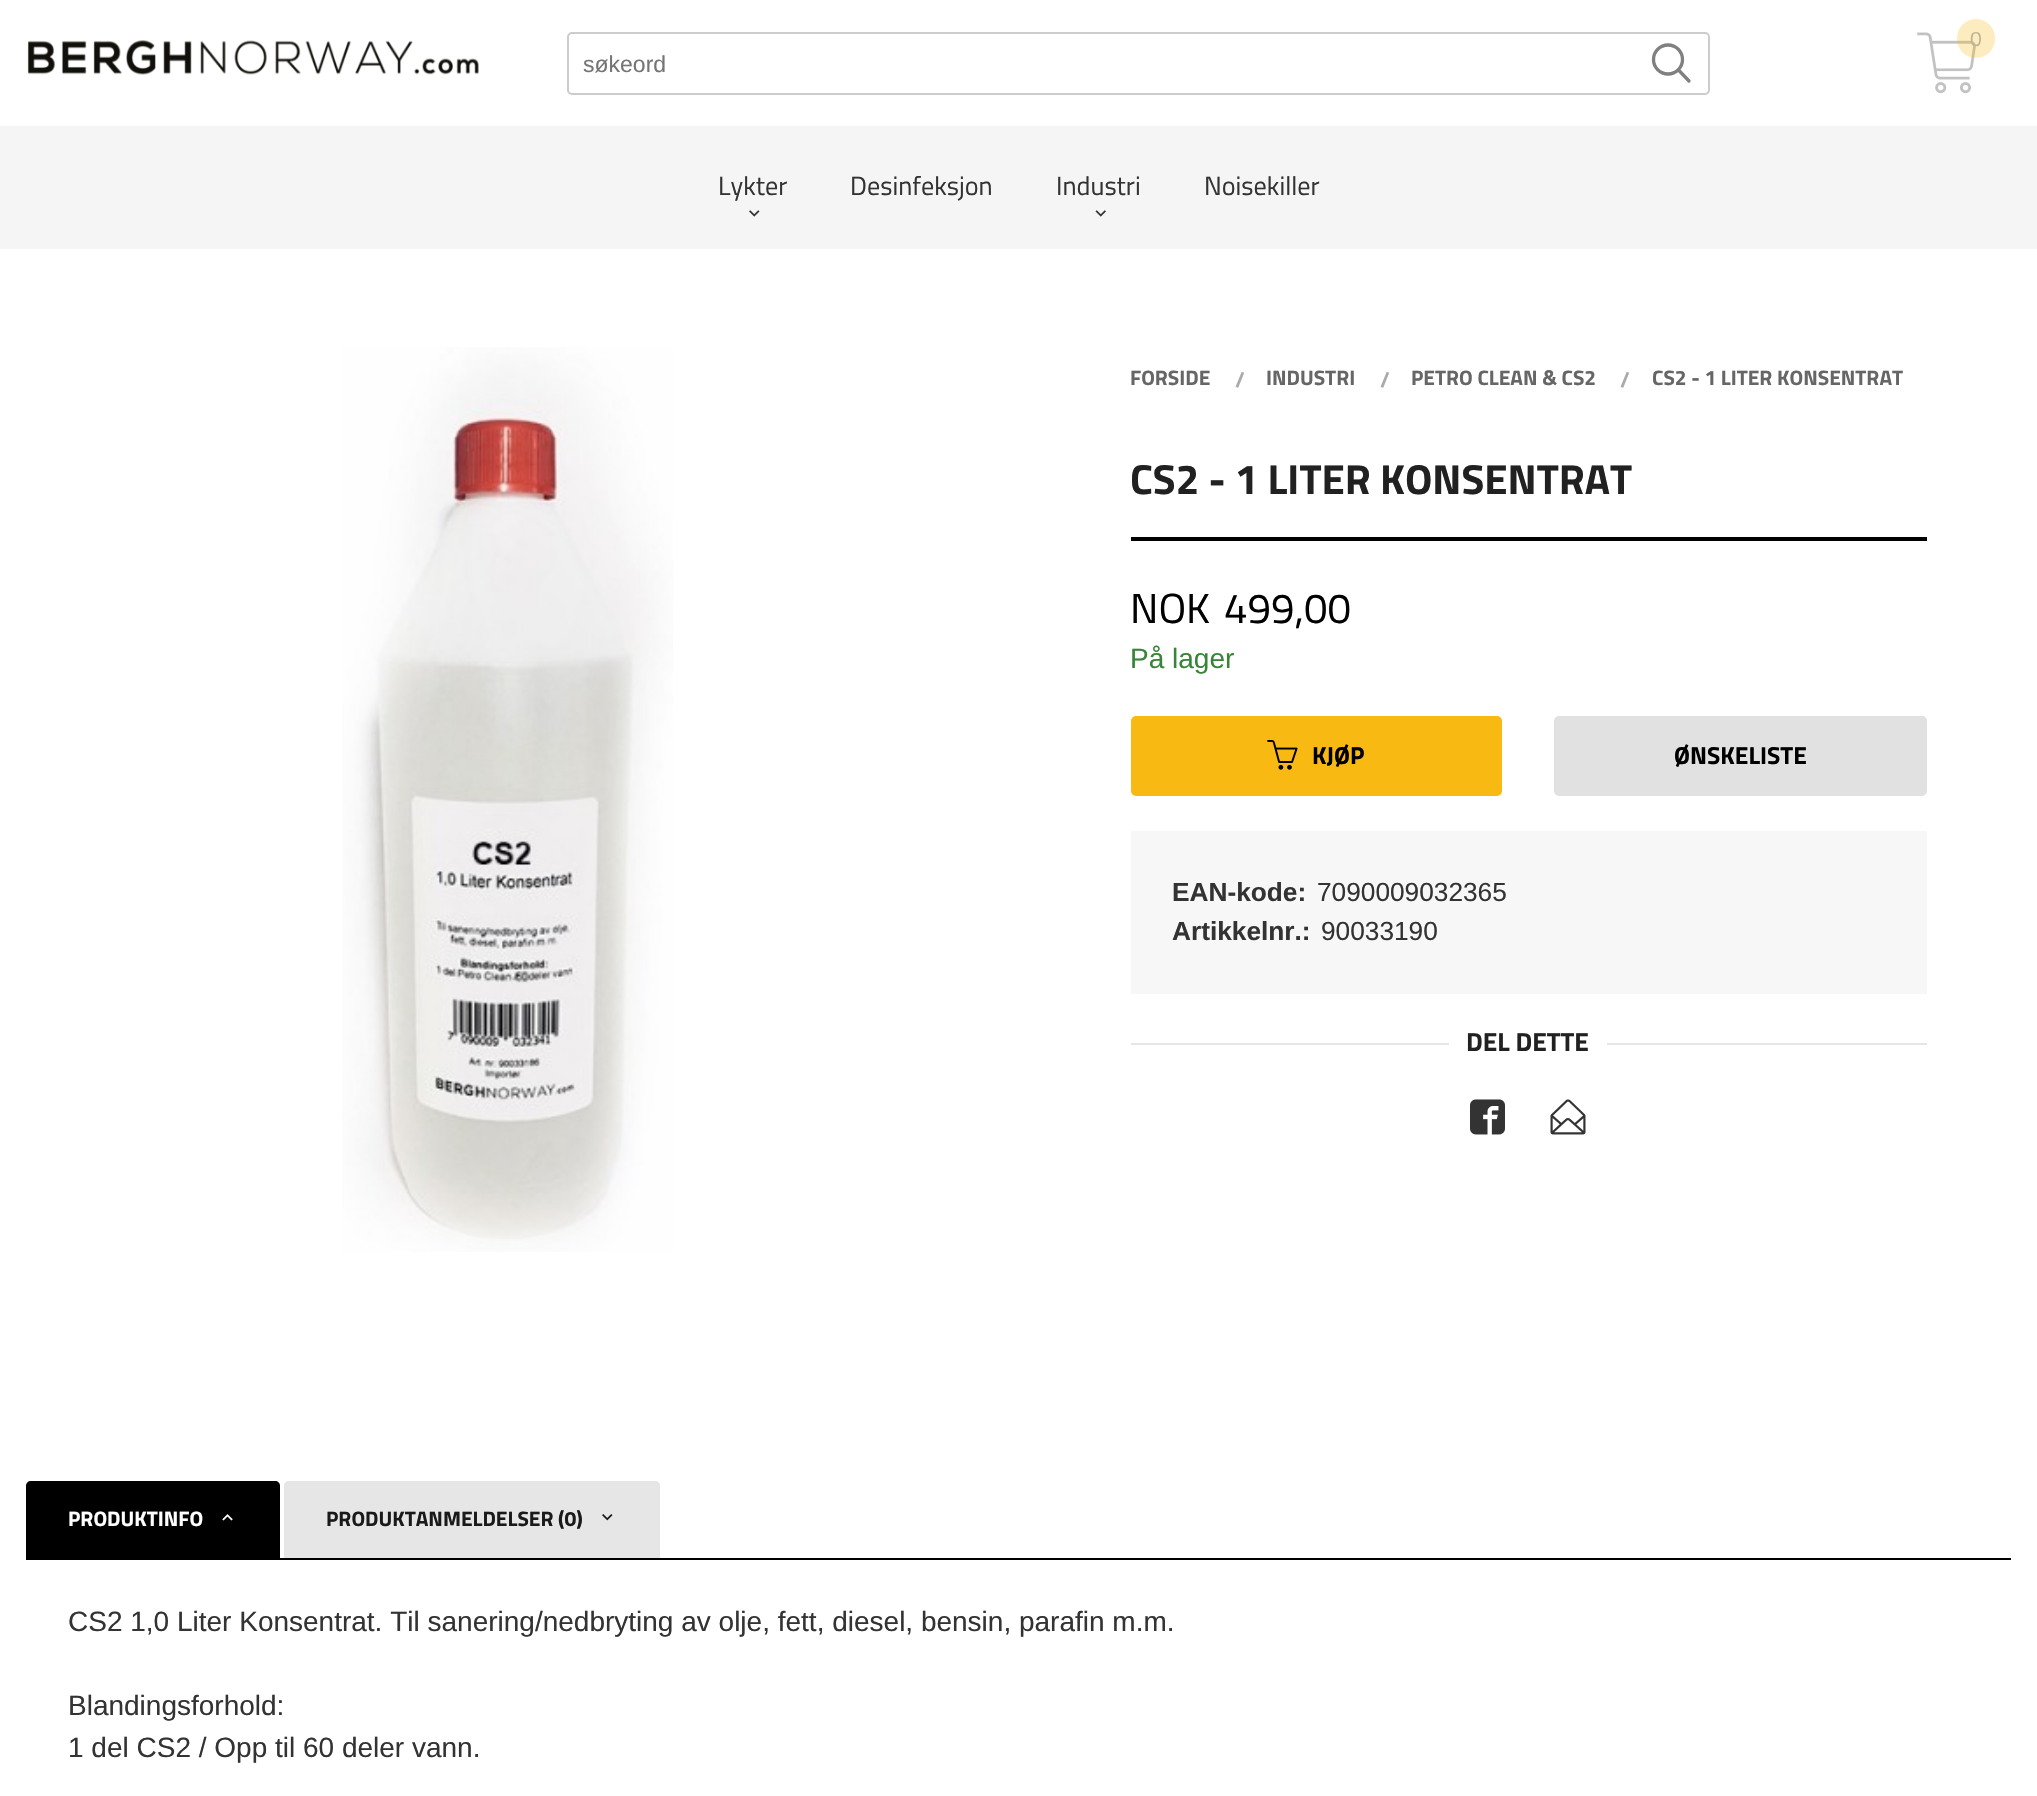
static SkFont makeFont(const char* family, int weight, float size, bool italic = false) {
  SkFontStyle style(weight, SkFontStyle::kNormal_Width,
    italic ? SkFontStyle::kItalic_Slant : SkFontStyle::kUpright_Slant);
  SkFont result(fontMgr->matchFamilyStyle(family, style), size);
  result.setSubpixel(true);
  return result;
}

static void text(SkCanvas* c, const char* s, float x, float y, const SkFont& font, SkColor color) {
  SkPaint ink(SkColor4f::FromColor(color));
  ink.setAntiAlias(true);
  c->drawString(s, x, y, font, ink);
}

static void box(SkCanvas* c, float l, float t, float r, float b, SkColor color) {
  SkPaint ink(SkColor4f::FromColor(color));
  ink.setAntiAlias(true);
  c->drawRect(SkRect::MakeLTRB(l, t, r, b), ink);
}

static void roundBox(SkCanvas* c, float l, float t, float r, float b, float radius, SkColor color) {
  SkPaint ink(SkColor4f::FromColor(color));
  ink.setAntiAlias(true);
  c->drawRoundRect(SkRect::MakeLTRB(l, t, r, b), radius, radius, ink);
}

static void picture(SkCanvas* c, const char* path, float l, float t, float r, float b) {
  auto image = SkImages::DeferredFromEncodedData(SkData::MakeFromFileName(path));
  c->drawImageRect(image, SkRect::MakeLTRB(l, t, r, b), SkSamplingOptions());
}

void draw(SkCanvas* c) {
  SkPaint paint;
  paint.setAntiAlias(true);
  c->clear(0xffffffff);
  picture(c, "img_01.png", 1917, 32, 1976, 94);
  roundBox(c, 1957, 19, 1995, 58, 19, 0x45f8b913);
  SkFont face1 = makeFont("Titillium Web", 400, 21);
  text(c, "0", 1970, 46, face1, 0xffc0b493);
  picture(c, "img_02.png", 27, 40, 479, 75);
  paint.setStyle(SkPaint::kStroke_Style);
  paint.setStrokeWidth(2);
  paint.setColor(0xffcccccc);
  c->drawRoundRect(SkRect::MakeLTRB(568, 33, 1709, 94), 4, 4, paint);
  SkFont face2 = makeFont("Liberation Sans", 400, 23);
  text(c, "søkeord", 583, 72, face2, 0xff757575);
  paint.setStrokeWidth(3.3f);
  paint.setColor(0xff808080);
  c->drawCircle(1668, 59.5f, 14.5f, paint);
  paint.setStrokeCap(SkPaint::kRound_Cap);
  c->drawPath(SkPathBuilder().moveTo(1689, 81).lineTo(1678.5f, 70).detach(), paint);
  box(c, 0, 126, 2037, 249, 0xfff5f5f5);
  SkFont face3 = makeFont("Titillium Web", 400, 26.25f);
  text(c, "Lykter", 718, 195, face3, 0xff333333);
  picture(c, "img_03.png", 749, 210, 760, 217);
  text(c, "Desinfeksjon", 850, 195, face3, 0xff333333);
  text(c, "Industri", 1056, 195, face3, 0xff333333);
  picture(c, "img_04.png", 1095, 210, 1106, 217);
  text(c, "Noisekiller", 1204, 195, face3, 0xff333333);
  picture(c, "img_05.png", 342, 347, 673, 1252);
  SkFont face4 = makeFont("Titillium Web", 700, 21);
  text(c, "FORSIDE", 1130, 385, face4, 0xff666666);
  text(c, "/", 1235, 387, face4, 0xffaaaaaa);
  text(c, "INDUSTRI", 1266, 385, face4, 0xff666666);
  text(c, "/", 1380, 387, face4, 0xffaaaaaa);
  text(c, "PETRO CLEAN & CS2", 1411, 385, face4, 0xff666666);
  text(c, "/", 1620, 387, face4, 0xffaaaaaa);
  text(c, "CS2 - 1 LITER KONSENTRAT", 1652, 385, face4, 0xff666666);
  box(c, 1131, 537, 1927, 541, 0xff000000);
  SkFont face5 = makeFont("Titillium Web", 700, 42);
  text(c, "CS2 - 1 LITER KONSENTRAT", 1130, 494, face5, 0xff212121);
  SkFont face6 = makeFont("Titillium Web", 400, 42);
  text(c, "NOK", 1130, 623, face6, 0xff000000);
  text(c, "499,00", 1224, 623, face6, 0xff000000);
  SkFont face7 = makeFont("Liberation Sans", 400, 28);
  text(c, "På lager", 1130, 668, face7, 0xff398439);
  roundBox(c, 1131, 716, 1502, 796, 5, 0xfff8b913);
  picture(c, "img_06.png", 1267, 740, 1298, 770);
  SkFont face8 = makeFont("Titillium Web", 700, 24.5f);
  text(c, "KJØP", 1312, 764, face8, 0xff000000);
  roundBox(c, 1554, 716, 1927, 796, 5, 0xffe1e1e1);
  text(c, "ØNSKELISTE", 1674, 764, face8, 0xff000000);
  box(c, 1131, 831, 1927, 994, 0xfff7f7f7);
  SkFont face9 = makeFont("Liberation Sans", 700, 26.25f);
  text(c, "EAN-kode:", 1172, 901, face9, 0xff333333);
  SkFont face10 = makeFont("Liberation Sans", 400, 26.25f);
  text(c, "7090009032365", 1317, 901, face10, 0xff333333);
  text(c, "Artikkelnr.:", 1172, 940, face9, 0xff333333);
  text(c, "90033190", 1321, 940, face10, 0xff333333);
  box(c, 1131, 1043, 1927, 1045, 0xffe6e6e6);
  box(c, 1449, 1043, 1607, 1045, 0xffffffff);
  SkFont face11 = makeFont("Titillium Web", 700, 26.25f);
  text(c, "DEL DETTE", 1466, 1051, face11, 0xff212121);
  picture(c, "img_07.png", 1470, 1099, 1505, 1135);
  picture(c, "img_08.png", 1550, 1099, 1586, 1135);
  paint.setStyle(SkPaint::kFill_Style);
  paint.setColor(0xff000000);
  c->drawPath(SkPathBuilder().moveTo(31, 1481).lineTo(275, 1481).cubicTo(278, 1481, 280, 1483, 280, 1486).lineTo(280, 1558).lineTo(26, 1558).lineTo(26, 1486).cubicTo(26, 1483, 28, 1481, 31, 1481).close().detach(), paint);
  text(c, "PRODUKTINFO", 68, 1526, face4, 0xffffffff);
  picture(c, "img_09.png", 222, 1514, 233, 1521);
  paint.setColor(0xffe6e6e6);
  c->drawPath(SkPathBuilder().moveTo(289, 1481).lineTo(655, 1481).cubicTo(658, 1481, 660, 1483, 660, 1486).lineTo(660, 1558).lineTo(284, 1558).lineTo(284, 1486).cubicTo(284, 1483, 286, 1481, 289, 1481).close().detach(), paint);
  text(c, "PRODUKTANMELDELSER (0)", 326, 1526, face4, 0xff1a1a1a);
  picture(c, "img_10.png", 602, 1514, 613, 1521);
  box(c, 26, 1558, 2011, 1560, 0xff000000);
  text(c, "CS2 1,0 Liter Konsentrat. Til sanering/nedbryting av olje, fett, diesel, bensin, parafin m.m.", 68, 1631, face7, 0xff333333);
  text(c, "Blandingsforhold:", 68, 1715, face7, 0xff333333);
  text(c, "1 del CS2 / Opp til 60 deler vann.", 68, 1757, face7, 0xff333333);
}
